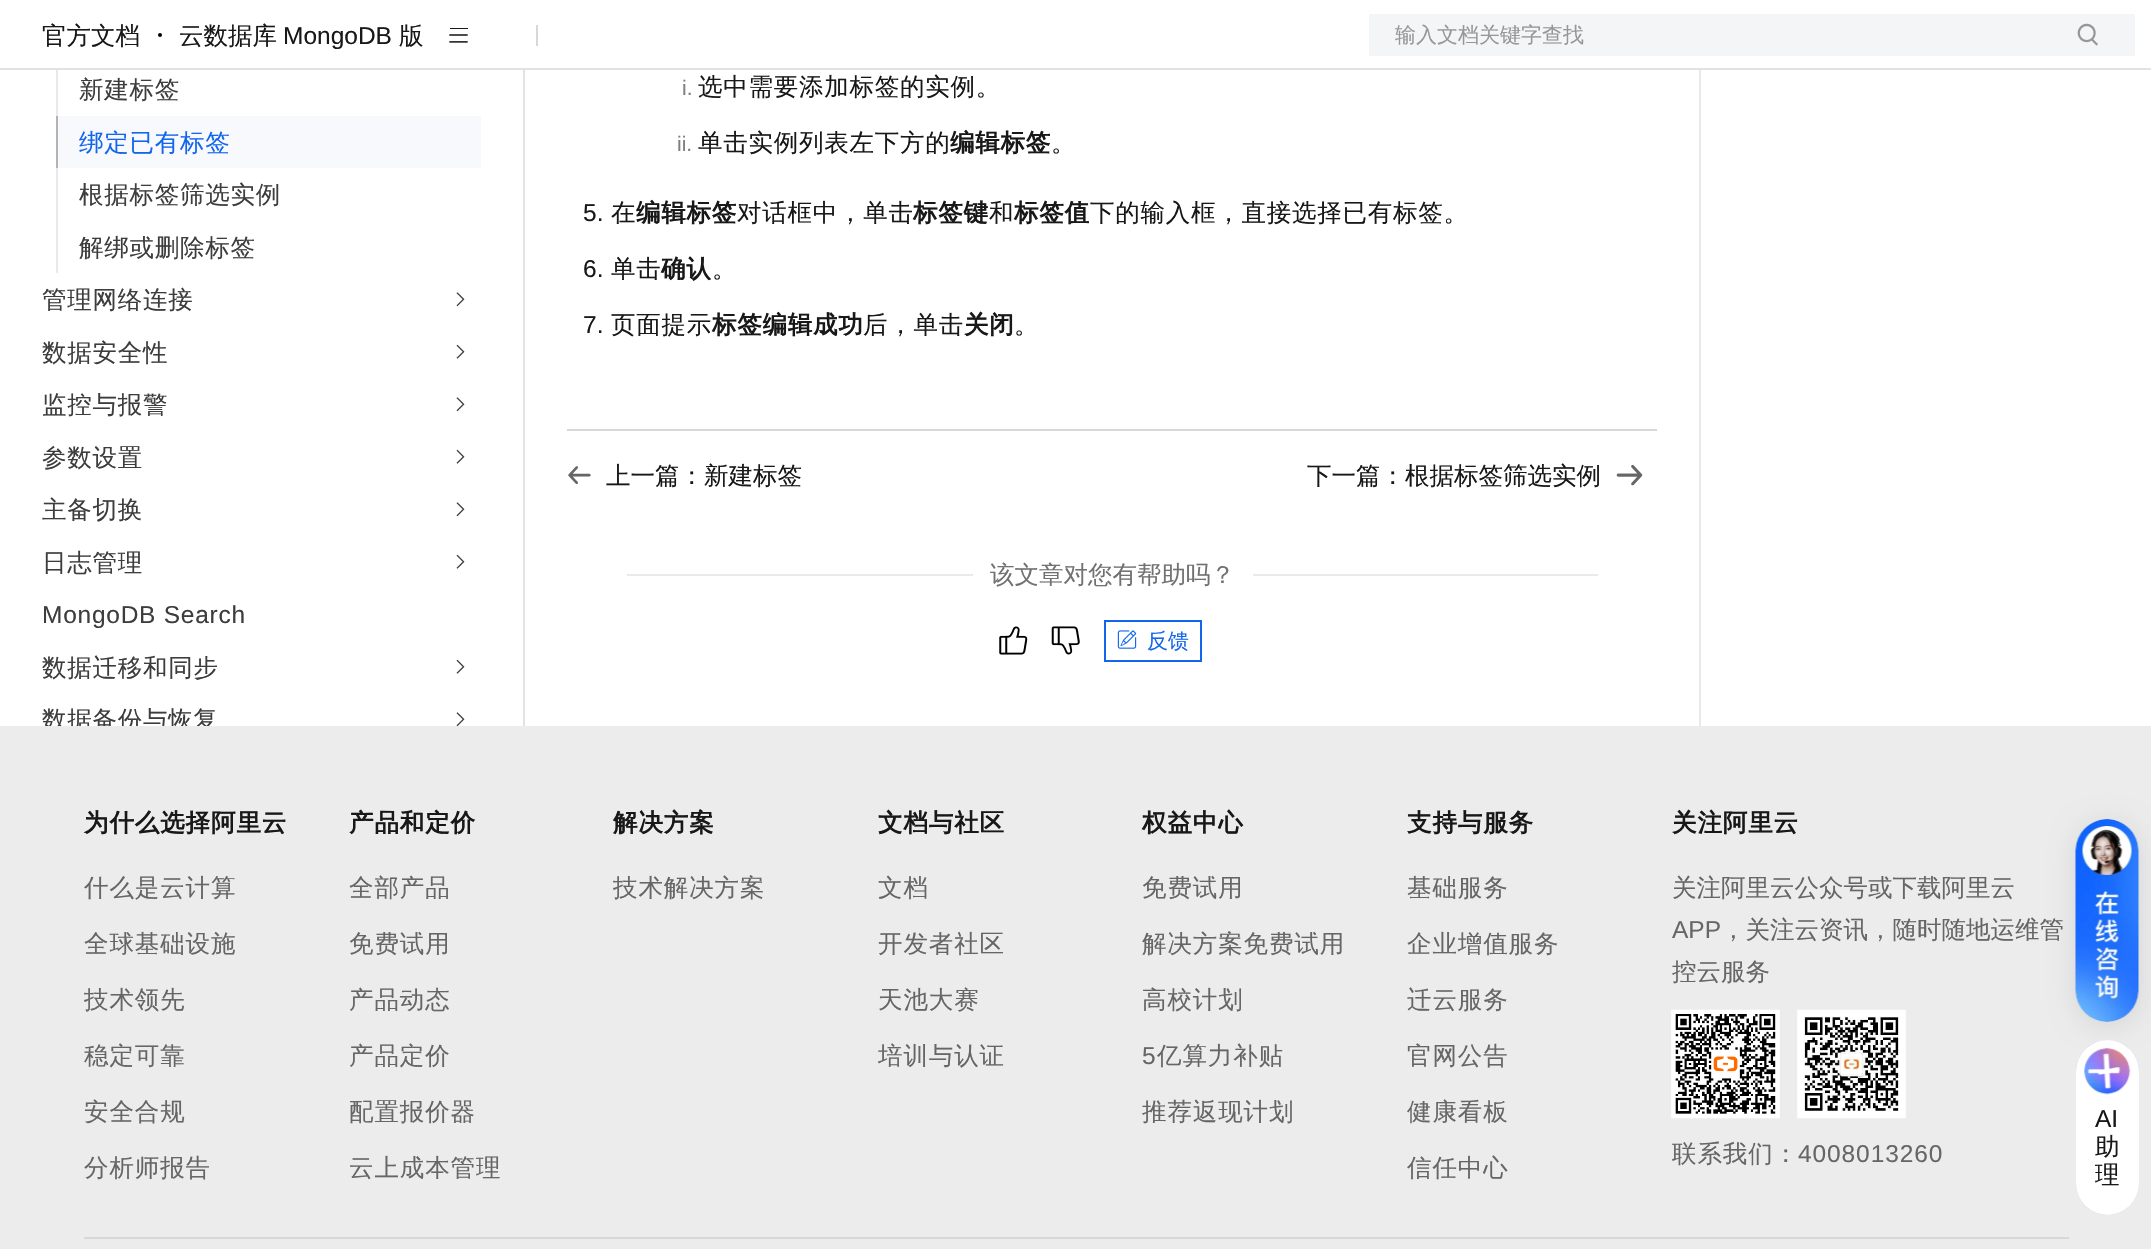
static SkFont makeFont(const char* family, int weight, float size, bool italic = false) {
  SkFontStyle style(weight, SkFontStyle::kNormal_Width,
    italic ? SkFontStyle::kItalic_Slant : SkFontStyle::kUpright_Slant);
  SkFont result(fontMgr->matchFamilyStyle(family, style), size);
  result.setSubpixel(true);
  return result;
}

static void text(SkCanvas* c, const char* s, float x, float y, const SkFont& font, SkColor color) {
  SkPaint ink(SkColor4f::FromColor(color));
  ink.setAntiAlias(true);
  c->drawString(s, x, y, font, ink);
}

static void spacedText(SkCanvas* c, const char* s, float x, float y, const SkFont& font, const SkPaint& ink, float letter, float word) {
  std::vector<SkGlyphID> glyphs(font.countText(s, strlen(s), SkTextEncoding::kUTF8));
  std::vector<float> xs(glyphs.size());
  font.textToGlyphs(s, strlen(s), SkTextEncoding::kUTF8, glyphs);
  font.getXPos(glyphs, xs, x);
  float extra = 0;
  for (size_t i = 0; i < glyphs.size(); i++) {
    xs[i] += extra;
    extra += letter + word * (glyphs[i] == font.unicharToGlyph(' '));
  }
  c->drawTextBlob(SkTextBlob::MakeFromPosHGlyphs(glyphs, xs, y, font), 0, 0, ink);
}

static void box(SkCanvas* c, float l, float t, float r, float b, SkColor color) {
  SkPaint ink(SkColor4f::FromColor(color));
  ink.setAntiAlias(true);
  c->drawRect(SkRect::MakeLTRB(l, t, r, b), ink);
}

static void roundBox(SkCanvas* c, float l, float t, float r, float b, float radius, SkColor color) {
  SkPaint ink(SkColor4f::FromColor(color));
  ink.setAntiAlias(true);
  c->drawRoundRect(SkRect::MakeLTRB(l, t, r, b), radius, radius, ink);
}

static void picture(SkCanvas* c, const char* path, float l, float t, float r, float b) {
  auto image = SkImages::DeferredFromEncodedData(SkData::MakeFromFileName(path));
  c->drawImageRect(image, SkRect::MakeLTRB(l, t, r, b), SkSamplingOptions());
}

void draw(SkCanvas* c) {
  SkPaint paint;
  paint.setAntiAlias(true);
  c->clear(0xffffffff);
  box(c, 56, 63, 58, 116, 0xffe9e9e9);
  box(c, 56, 63, 58, 68, 0xffffffff);
  box(c, 0, 68, 2151, 70, 0xffe2e2e2);
  box(c, 536, 25, 538, 46, 0xffd7d8d9);
  SkFont face1 = makeFont("WenQuanYi Zen Hei", 500, 24.5f);
  text(c, "官方文档", 42, 44, face1, 0xff181818);
  paint.setColor(0xff000000);
  c->drawCircle(160, 35, 2, paint);
  text(c, "云数据库", 179, 44, face1, 0xff181818);
  SkFont face2 = makeFont("Liberation Sans", 400, 24.5f);
  text(c, "MongoDB", 283, 44, face2, 0xff181818);
  text(c, "版", 399, 44, face1, 0xff181818);
  picture(c, "img_01.png", 449, 28, 468, 43);
  box(c, 1369, 14, 2135, 56, 0xfff4f5f7);
  SkFont face3 = makeFont("WenQuanYi Zen Hei", 500, 21);
  text(c, "输入文档关键字查找", 1395, 42, face3, 0xff979797);
  picture(c, "img_02.png", 2077, 23, 2098, 46);
  paint.setColor(0xff3d3d3d);
  spacedText(c, "新建标签", 79, 98, face1, paint, 0.75f, 0);
  box(c, 58, 116, 481, 168, 0xfff7f9fc);
  box(c, 56, 116, 58, 168, 0xffb3b3b3);
  paint.setColor(0xff1366ec);
  spacedText(c, "绑定已有标签", 79, 151, face1, paint, 0.75f, 0);
  box(c, 56, 168, 58, 273, 0xffe9e9e9);
  paint.setColor(0xff3d3d3d);
  spacedText(c, "根据标签筛选实例", 79, 203, face1, paint, 0.75f, 0);
  spacedText(c, "解绑或删除标签", 79, 256, face1, paint, 0.75f, 0);
  spacedText(c, "管理网络连接", 42, 308, face1, paint, 0.75f, 0);
  picture(c, "img_03.png", 456, 292, 465, 307);
  spacedText(c, "数据安全性", 42, 361, face1, paint, 0.75f, 0);
  picture(c, "img_04.png", 456, 344, 465, 359);
  spacedText(c, "监控与报警", 42, 413, face1, paint, 0.75f, 0);
  picture(c, "img_03.png", 456, 397, 465, 412);
  spacedText(c, "参数设置", 42, 466, face1, paint, 0.75f, 0);
  picture(c, "img_04.png", 456, 449, 465, 464);
  spacedText(c, "主备切换", 42, 518, face1, paint, 0.75f, 0);
  picture(c, "img_03.png", 456, 502, 465, 517);
  spacedText(c, "日志管理", 42, 571, face1, paint, 0.75f, 0);
  picture(c, "img_04.png", 456, 554, 465, 569);
  spacedText(c, "MongoDB Search", 42, 623, face2, paint, 0.75f, 0);
  spacedText(c, "数据迁移和同步", 42, 676, face1, paint, 0.75f, 0);
  picture(c, "img_04.png", 456, 659, 465, 674);
  c->save();
  c->clipRect(SkRect::MakeLTRB(0, 0, 523, 726));
  spacedText(c, "数据备份与恢复", 42, 728, face1, paint, 0.75f, 0);
  c->restore();
  picture(c, "img_05.png", 456, 712, 465, 726);
  box(c, 523, 70, 525, 726, 0xffe3e3e3);
  box(c, 1699, 70, 1701, 726, 0xffe9e9e9);
  SkFont face4 = makeFont("Liberation Sans", 400, 21);
  text(c, "i.", 682, 95, face4, 0xff808080);
  paint.setColor(0xff181818);
  spacedText(c, "选中需要添加标签的实例。", 698, 95, face1, paint, 0.75f, 0);
  text(c, "ii.", 677, 151, face4, 0xff808080);
  spacedText(c, "单击实例列表左下方的", 698, 151, face1, paint, 0.75f, 0);
  SkFont face5 = makeFont("WenQuanYi Zen Hei", 700, 24.5f);
  spacedText(c, "编辑标签", 950, 151, face5, paint, 0.75f, 0);
  spacedText(c, "。", 1051, 151, face1, paint, 0.75f, 0);
  text(c, "5.", 583, 221, face2, 0xff181818);
  spacedText(c, "在", 611, 221, face1, paint, 0.75f, 0);
  spacedText(c, "编辑标签", 636, 221, face5, paint, 0.75f, 0);
  spacedText(c, "对话框中，单击", 737, 221, face1, paint, 0.75f, 0);
  spacedText(c, "标签键", 913, 221, face5, paint, 0.75f, 0);
  spacedText(c, "和", 989, 221, face1, paint, 0.75f, 0);
  spacedText(c, "标签值", 1014, 221, face5, paint, 0.75f, 0);
  spacedText(c, "下的输入框，直接选择已有标签。", 1090, 221, face1, paint, 0.75f, 0);
  text(c, "6.", 583, 277, face2, 0xff181818);
  spacedText(c, "单击", 611, 277, face1, paint, 0.75f, 0);
  spacedText(c, "确认", 661, 277, face5, paint, 0.75f, 0);
  spacedText(c, "。", 712, 277, face1, paint, 0.75f, 0);
  text(c, "7.", 583, 333, face2, 0xff181818);
  spacedText(c, "页面提示", 611, 333, face1, paint, 0.75f, 0);
  spacedText(c, "标签编辑成功", 712, 333, face5, paint, 0.75f, 0);
  spacedText(c, "后，单击", 863, 333, face1, paint, 0.75f, 0);
  spacedText(c, "关闭", 964, 333, face5, paint, 0.75f, 0);
  spacedText(c, "。", 1014, 333, face1, paint, 0.75f, 0);
  box(c, 567, 429, 1657, 431, 0xffd7d8d9);
  picture(c, "img_06.png", 568, 466, 591, 484);
  text(c, "上一篇：新建标签", 606, 484, face1, 0xff181818);
  text(c, "下一篇：根据标签筛选实例", 1307, 484, face1, 0xff181818);
  picture(c, "img_07.png", 1616, 465, 1643, 486);
  box(c, 627, 574, 973, 576, 0xffeaeaea);
  text(c, "该文章对您有帮助吗？", 990, 583, face1, 0xff717171);
  box(c, 1253, 574, 1598, 576, 0xffeaeaea);
  picture(c, "img_08.png", 999, 626, 1028, 655);
  picture(c, "img_09.png", 1051, 626, 1080, 655);
  paint.setStyle(SkPaint::kStroke_Style);
  paint.setStrokeWidth(2);
  paint.setColor(0xff1366ec);
  c->drawRect(SkRect::MakeLTRB(1105, 621, 1201, 661), paint);
  picture(c, "img_10.png", 1117, 630, 1137, 649);
  text(c, "反馈", 1147, 648, face3, 0xff1366ec);
  box(c, 0, 726, 2151, 1249, 0xffececec);
  box(c, 84, 1237, 2069, 1239, 0xffd7d8d9);
  paint.setStyle(SkPaint::kFill_Style);
  paint.setColor(0xff181818);
  spacedText(c, "为什么选择阿里云", 84, 831, face5, paint, 0.9f, 0);
  paint.setColor(0xff666666);
  spacedText(c, "什么是云计算", 84, 896, face1, paint, 0.9f, 0);
  spacedText(c, "全球基础设施", 84, 952, face1, paint, 0.9f, 0);
  spacedText(c, "技术领先", 84, 1008, face1, paint, 0.9f, 0);
  spacedText(c, "稳定可靠", 84, 1064, face1, paint, 0.9f, 0);
  spacedText(c, "安全合规", 84, 1120, face1, paint, 0.9f, 0);
  spacedText(c, "分析师报告", 84, 1176, face1, paint, 0.9f, 0);
  paint.setColor(0xff181818);
  spacedText(c, "产品和定价", 349, 831, face5, paint, 0.9f, 0);
  paint.setColor(0xff666666);
  spacedText(c, "全部产品", 349, 896, face1, paint, 0.9f, 0);
  spacedText(c, "免费试用", 349, 952, face1, paint, 0.9f, 0);
  spacedText(c, "产品动态", 349, 1008, face1, paint, 0.9f, 0);
  spacedText(c, "产品定价", 349, 1064, face1, paint, 0.9f, 0);
  spacedText(c, "配置报价器", 349, 1120, face1, paint, 0.9f, 0);
  spacedText(c, "云上成本管理", 349, 1176, face1, paint, 0.9f, 0);
  paint.setColor(0xff181818);
  spacedText(c, "解决方案", 613, 831, face5, paint, 0.9f, 0);
  paint.setColor(0xff666666);
  spacedText(c, "技术解决方案", 613, 896, face1, paint, 0.9f, 0);
  paint.setColor(0xff181818);
  spacedText(c, "文档与社区", 878, 831, face5, paint, 0.9f, 0);
  paint.setColor(0xff666666);
  spacedText(c, "文档", 878, 896, face1, paint, 0.9f, 0);
  spacedText(c, "开发者社区", 878, 952, face1, paint, 0.9f, 0);
  spacedText(c, "天池大赛", 878, 1008, face1, paint, 0.9f, 0);
  spacedText(c, "培训与认证", 878, 1064, face1, paint, 0.9f, 0);
  paint.setColor(0xff181818);
  spacedText(c, "权益中心", 1142, 831, face5, paint, 0.9f, 0);
  paint.setColor(0xff666666);
  spacedText(c, "免费试用", 1142, 896, face1, paint, 0.9f, 0);
  spacedText(c, "解决方案免费试用", 1142, 952, face1, paint, 0.9f, 0);
  spacedText(c, "高校计划", 1142, 1008, face1, paint, 0.9f, 0);
  spacedText(c, "5", 1142, 1064, face2, paint, 0.9f, 0);
  spacedText(c, "亿算力补贴", 1157, 1064, face1, paint, 0.9f, 0);
  spacedText(c, "推荐返现计划", 1142, 1120, face1, paint, 0.9f, 0);
  paint.setColor(0xff181818);
  spacedText(c, "支持与服务", 1407, 831, face5, paint, 0.9f, 0);
  paint.setColor(0xff666666);
  spacedText(c, "基础服务", 1407, 896, face1, paint, 0.9f, 0);
  spacedText(c, "企业增值服务", 1407, 952, face1, paint, 0.9f, 0);
  spacedText(c, "迁云服务", 1407, 1008, face1, paint, 0.9f, 0);
  spacedText(c, "官网公告", 1407, 1064, face1, paint, 0.9f, 0);
  spacedText(c, "健康看板", 1407, 1120, face1, paint, 0.9f, 0);
  spacedText(c, "信任中心", 1407, 1176, face1, paint, 0.9f, 0);
  paint.setColor(0xff181818);
  spacedText(c, "关注阿里云", 1672, 831, face5, paint, 0.9f, 0);
  text(c, "关注阿里云公众号或下载阿里云", 1672, 896, face1, 0xff666666);
  text(c, "APP", 1672, 938, face2, 0xff666666);
  text(c, "，关注云资讯，随时随地运维管", 1721, 938, face1, 0xff666666);
  text(c, "控云服务", 1672, 980, face1, 0xff666666);
  picture(c, "img_11.png", 1671, 1009, 1780, 1119);
  picture(c, "img_12.png", 1797, 1009, 1906, 1119);
  paint.setColor(0xff666666);
  spacedText(c, "联系我们：", 1672, 1162, face1, paint, 0.9f, 0);
  spacedText(c, "4008013260", 1798, 1162, face2, paint, 0.9f, 0);
  paint.setColor(0x1a000000);
  paint.setMaskFilter(SkMaskFilter::MakeBlur(kNormal_SkBlurStyle, 13));
  c->drawRoundRect(SkRect::MakeLTRB(2076, 823, 2139, 1026), 31.5f, 31.5f, paint);
  paint.setMaskFilter(nullptr);
  picture(c, "img_13.png", 2075, 819, 2139, 1022);
  c->save();
  c->clipPath(SkPathBuilder().moveTo(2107.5f, 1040).cubicTo(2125, 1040, 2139, 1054, 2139, 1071.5f).lineTo(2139, 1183.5f).cubicTo(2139, 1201, 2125, 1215, 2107.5f, 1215).cubicTo(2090, 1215, 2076, 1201, 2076, 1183.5f).lineTo(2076, 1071.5f).cubicTo(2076, 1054, 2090, 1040, 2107.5f, 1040).close().detach(), true);
  paint.setColor(0xffbadaf1);
  paint.setMaskFilter(SkMaskFilter::MakeBlur(kNormal_SkBlurStyle, 7));
  c->drawRect(SkRect::MakeLTRB(1988, 952, 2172, 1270), paint);
  paint.setMaskFilter(nullptr);
  paint.setColor(0x5ef1cabd);
  paint.setMaskFilter(SkMaskFilter::MakeBlur(kNormal_SkBlurStyle, 7));
  c->drawRect(SkRect::MakeLTRB(1988, 952, 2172, 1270), paint);
  paint.setMaskFilter(nullptr);
  c->restore();
  roundBox(c, 2076, 1040, 2139, 1215, 31.5f, 0xffffffff);
  picture(c, "img_14.png", 2084, 1048, 2131, 1095);
  picture(c, "img_15.png", 2087, 1053, 2121, 1089);
  text(c, "AI", 2095, 1127, face2, 0xff181818);
  text(c, "助", 2095, 1155, face1, 0xff181818);
  text(c, "理", 2095, 1183, face1, 0xff181818);
}
